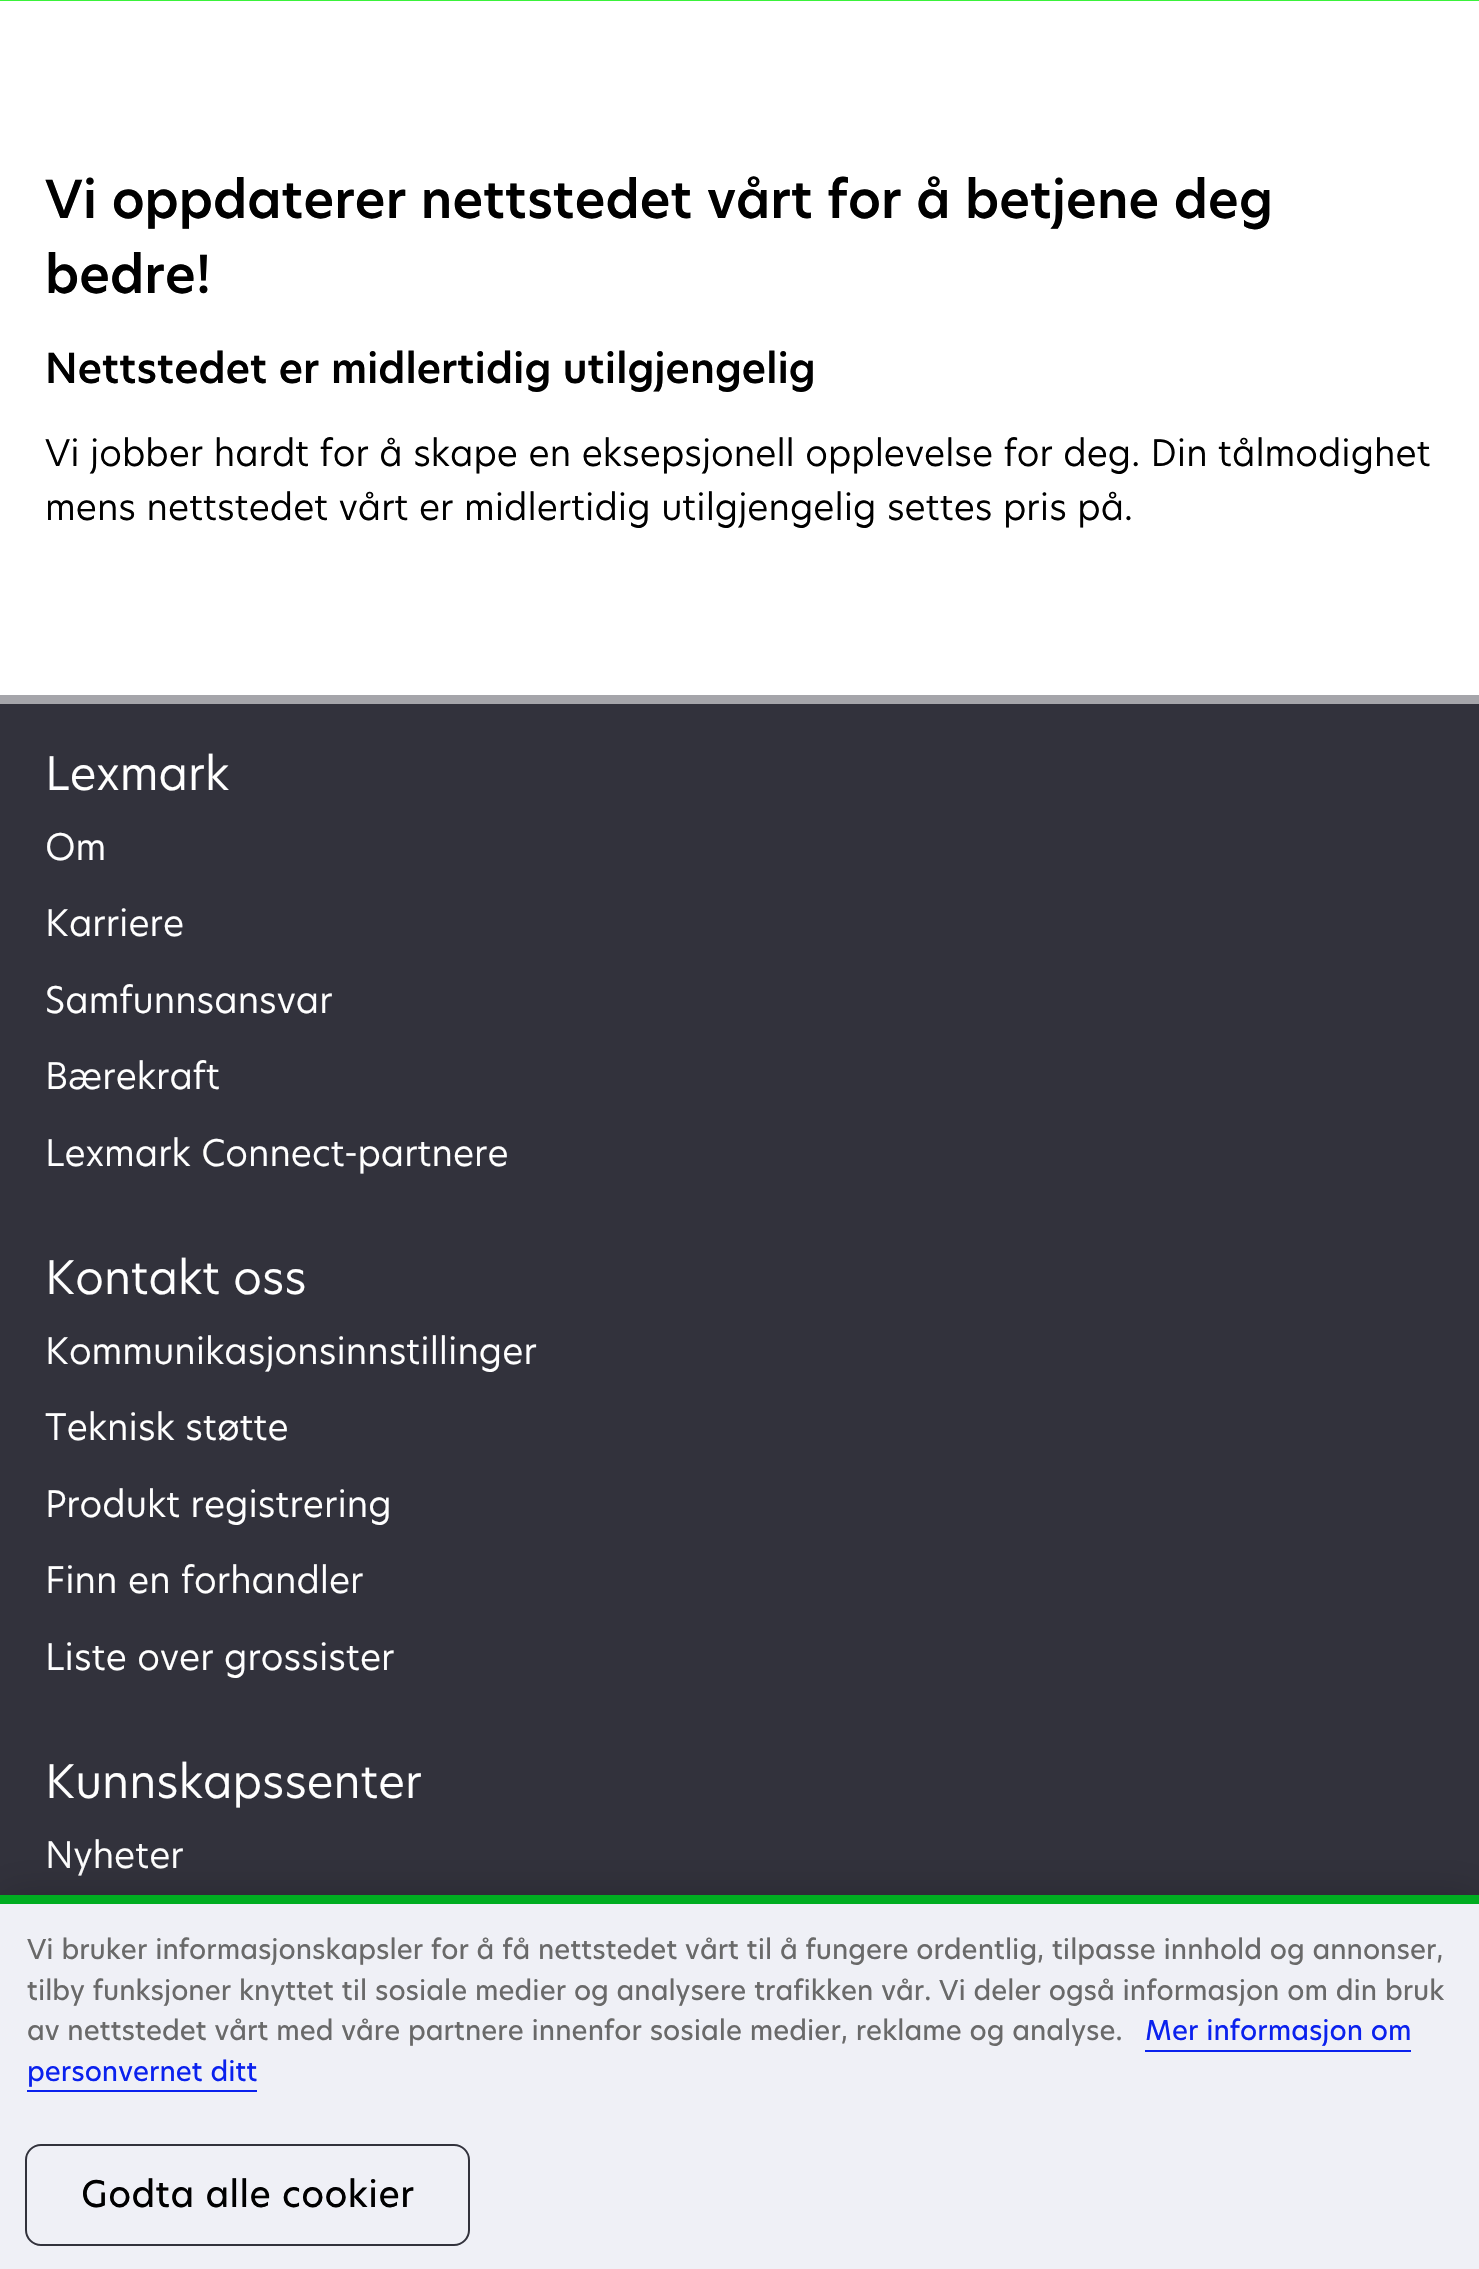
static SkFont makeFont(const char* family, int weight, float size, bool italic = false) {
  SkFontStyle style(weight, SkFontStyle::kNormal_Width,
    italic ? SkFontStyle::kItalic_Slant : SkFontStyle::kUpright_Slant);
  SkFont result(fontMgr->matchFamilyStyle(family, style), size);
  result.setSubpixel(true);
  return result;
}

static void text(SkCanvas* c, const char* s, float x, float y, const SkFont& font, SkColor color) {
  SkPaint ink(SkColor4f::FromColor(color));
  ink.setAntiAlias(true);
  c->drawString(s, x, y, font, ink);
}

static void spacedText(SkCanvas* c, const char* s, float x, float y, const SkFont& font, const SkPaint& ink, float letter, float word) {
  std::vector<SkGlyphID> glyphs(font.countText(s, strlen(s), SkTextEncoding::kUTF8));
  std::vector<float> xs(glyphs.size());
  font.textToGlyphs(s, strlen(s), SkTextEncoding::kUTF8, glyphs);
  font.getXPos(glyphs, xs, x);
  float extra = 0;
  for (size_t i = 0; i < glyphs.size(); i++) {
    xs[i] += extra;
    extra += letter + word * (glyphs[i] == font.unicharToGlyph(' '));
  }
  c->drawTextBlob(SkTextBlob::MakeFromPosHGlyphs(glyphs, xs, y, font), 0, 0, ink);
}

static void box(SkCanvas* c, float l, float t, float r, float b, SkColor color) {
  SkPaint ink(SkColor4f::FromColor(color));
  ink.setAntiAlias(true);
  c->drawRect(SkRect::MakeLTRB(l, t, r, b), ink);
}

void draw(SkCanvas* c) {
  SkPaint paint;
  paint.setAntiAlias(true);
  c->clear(0xffffffff);
  box(c, 0, 0, 1479, 1, 0xff3af23a);
  SkFont face1 = makeFont("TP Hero", 600, 51.25f);
  text(c, "Vi oppdaterer nettstedet vårt for å betjene deg", 45, 218, face1, 0xff000000);
  text(c, "bedre!", 45, 293, face1, 0xff000000);
  SkFont face2 = makeFont("TP Hero", 600, 40.5f);
  text(c, "Nettstedet er midlertidig utilgjengelig", 45, 383, face2, 0xff000000);
  SkFont face3 = makeFont("TP Hero", 400, 36);
  text(c, "Vi jobber hardt for å skape en eksepsjonell opplevelse for deg. Din tålmodighet", 45, 466, face3, 0xff000000);
  text(c, "mens nettstedet vårt er midlertidig utilgjengelig settes pris på.", 45, 520, face3, 0xff000000);
  box(c, 0, 704, 1479, 1895, 0xff32323c);
  box(c, 0, 695, 1479, 704, 0xffa5a5aa);
  SkFont face4 = makeFont("TP Hero", 400, 45.5f);
  text(c, "Lexmark", 45, 790, face4, 0xffffffff);
  text(c, "Om", 45, 860, face3, 0xffffffff);
  text(c, "Karriere", 45, 936, face3, 0xffffffff);
  text(c, "Samfunnsansvar", 45, 1013, face3, 0xffffffff);
  text(c, "Bærekraft", 45, 1089, face3, 0xffffffff);
  text(c, "Lexmark Connect-partnere", 45, 1166, face3, 0xffffffff);
  text(c, "Kontakt oss", 45, 1294, face4, 0xffffffff);
  text(c, "Kommunikasjonsinnstillinger", 45, 1364, face3, 0xffffffff);
  text(c, "Teknisk støtte", 45, 1440, face3, 0xffffffff);
  text(c, "Produkt registrering", 45, 1517, face3, 0xffffffff);
  text(c, "Finn en forhandler", 45, 1593, face3, 0xffffffff);
  text(c, "Liste over grossister", 45, 1670, face3, 0xffffffff);
  text(c, "Kunnskapssenter", 45, 1798, face4, 0xffffffff);
  text(c, "Nyheter", 45, 1868, face3, 0xffffffff);
  paint.setColor(0x33000000);
  paint.setMaskFilter(SkMaskFilter::MakeBlur(kNormal_SkBlurStyle, 20));
  c->drawRect(SkRect::MakeLTRB(0, 1895, 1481, 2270), paint);
  paint.setMaskFilter(nullptr);
  box(c, 0, 1904, 1479, 2269, 0xffeff0f6);
  box(c, 0, 1895, 1479, 1904, 0xff00ad21);
  SkFont face5 = makeFont("TP Hero", 500, 27);
  text(c, "Vi bruker informasjonskapsler for å få nettstedet vårt til å fungere ordentlig, tilpasse innhold og annonser,", 27, 1959, face5, 0xff696969);
  text(c, "tilby funksjoner knyttet til sosiale medier og analysere trafikken vår. Vi deler også informasjon om din bruk", 27, 2000, face5, 0xff696969);
  text(c, "av nettstedet vårt med våre partnere innenfor sosiale medier, reklame og analyse.", 27, 2040, face5, 0xff696969);
  text(c, "Mer informasjon om", 1145, 2040, face5, 0xff0a21ee);
  box(c, 1145, 2050, 1411, 2052, 0xff0a21ee);
  text(c, "personvernet ditt", 27, 2081, face5, 0xff0a21ee);
  box(c, 27, 2090, 257, 2092, 0xff0a21ee);
  paint.setStyle(SkPaint::kStroke_Style);
  paint.setStrokeWidth(2);
  paint.setColor(0xff32323c);
  c->drawRoundRect(SkRect::MakeLTRB(26, 2145, 469, 2245), 15, 15, paint);
  SkFont face6 = makeFont("TP Hero", 500, 36);
  paint.setStyle(SkPaint::kFill_Style);
  paint.setColor(0xff000000);
  spacedText(c, "Godta alle cookier", 81, 2207, face6, paint, 0.4f, 0);
}
